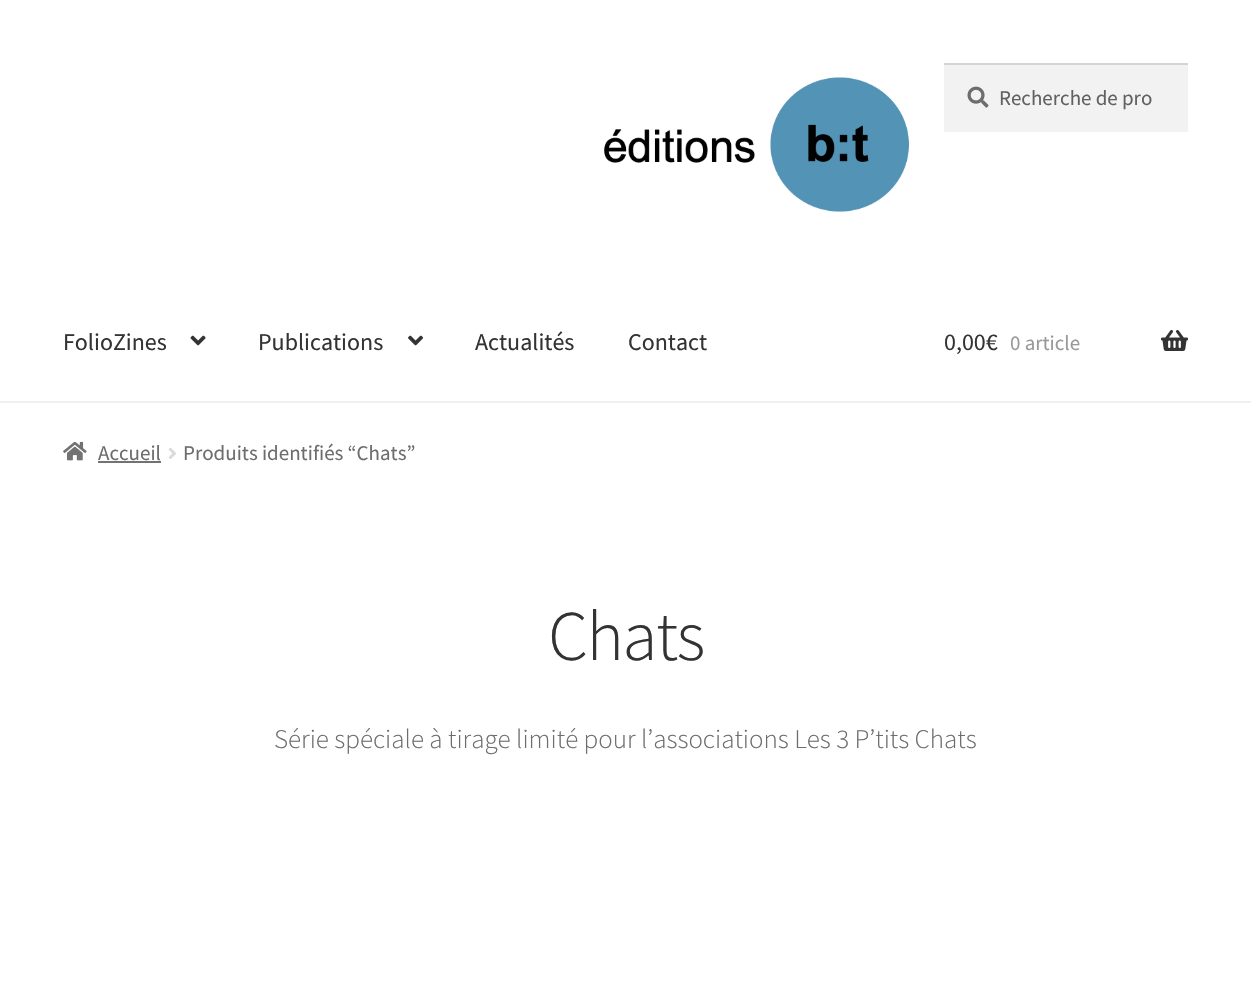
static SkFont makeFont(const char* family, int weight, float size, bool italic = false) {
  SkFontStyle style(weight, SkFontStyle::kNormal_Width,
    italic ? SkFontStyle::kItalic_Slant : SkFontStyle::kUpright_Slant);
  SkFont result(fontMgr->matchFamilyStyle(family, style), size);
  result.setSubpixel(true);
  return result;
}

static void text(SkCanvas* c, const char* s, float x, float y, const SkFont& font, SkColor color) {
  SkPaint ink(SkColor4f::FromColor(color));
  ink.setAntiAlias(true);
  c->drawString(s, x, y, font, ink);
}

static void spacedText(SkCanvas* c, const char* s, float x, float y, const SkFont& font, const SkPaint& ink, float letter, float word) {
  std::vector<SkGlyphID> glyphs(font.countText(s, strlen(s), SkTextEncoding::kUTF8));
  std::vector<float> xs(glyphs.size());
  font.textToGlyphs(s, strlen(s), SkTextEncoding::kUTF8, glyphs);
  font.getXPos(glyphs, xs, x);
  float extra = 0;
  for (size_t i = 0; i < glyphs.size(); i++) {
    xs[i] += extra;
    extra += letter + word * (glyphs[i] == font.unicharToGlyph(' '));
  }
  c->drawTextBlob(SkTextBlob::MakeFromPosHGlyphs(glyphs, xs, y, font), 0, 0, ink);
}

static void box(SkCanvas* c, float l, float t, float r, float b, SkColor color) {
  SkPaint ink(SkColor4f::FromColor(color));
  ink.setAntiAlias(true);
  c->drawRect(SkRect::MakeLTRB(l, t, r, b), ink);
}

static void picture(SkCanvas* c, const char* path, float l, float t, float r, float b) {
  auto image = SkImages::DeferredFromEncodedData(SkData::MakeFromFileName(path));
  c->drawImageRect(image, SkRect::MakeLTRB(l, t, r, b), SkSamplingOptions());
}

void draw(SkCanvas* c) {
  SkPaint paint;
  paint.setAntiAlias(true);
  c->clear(0xffffffff);
  box(c, 0, 401, 1251, 403, 0xfff0f0f0);
  picture(c, "img_01.png", 604, 77, 909, 212);
  box(c, 944, 65, 1188, 132, 0xfff2f2f2);
  picture(c, "img_02.png", 967, 86, 989, 108);
  box(c, 944, 63, 1188, 65, 0xffd4d4d4);
  SkFont face1 = makeFont("Source Sans Pro", 400, 21);
  text(c, "Recherche de pro", 999, 105, face1, 0xff616161);
  SkFont face2 = makeFont("Source Sans Pro", 400, 24);
  text(c, "FolioZines", 63, 350, face2, 0xff333333);
  picture(c, "img_03.png", 190, 335, 206, 346);
  text(c, "Publications", 258, 350, face2, 0xff333333);
  picture(c, "img_04.png", 408, 335, 423, 346);
  text(c, "Actualités", 475, 350, face2, 0xff333333);
  text(c, "Contact", 628, 350, face2, 0xff333333);
  text(c, "0,00€", 944, 350, face2, 0xff333333);
  text(c, "0 article", 1010, 350, face1, 0xff999999);
  picture(c, "img_05.png", 1161, 330, 1188, 351);
  picture(c, "img_06.png", 63, 441, 87, 461);
  text(c, "Accueil", 98, 460, face1, 0xff6d6d6d);
  box(c, 98, 461, 161, 463, 0xff727272);
  picture(c, "img_07.png", 168, 447, 176, 459);
  text(c, "Produits identifiés “Chats”", 183, 460, face1, 0xff6d6d6d);
  SkFont face3 = makeFont("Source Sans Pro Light", 300, 71);
  paint.setColor(0xff333333);
  spacedText(c, "Chats", 548, 660, face3, paint, -1.5f, 0);
  SkFont face4 = makeFont("Source Sans Pro Light", 300, 27);
  text(c, "Série spéciale à tirage limité pour l’associations Les 3 P’tits Chats", 274, 748, face4, 0xff6d6d6d);
}
